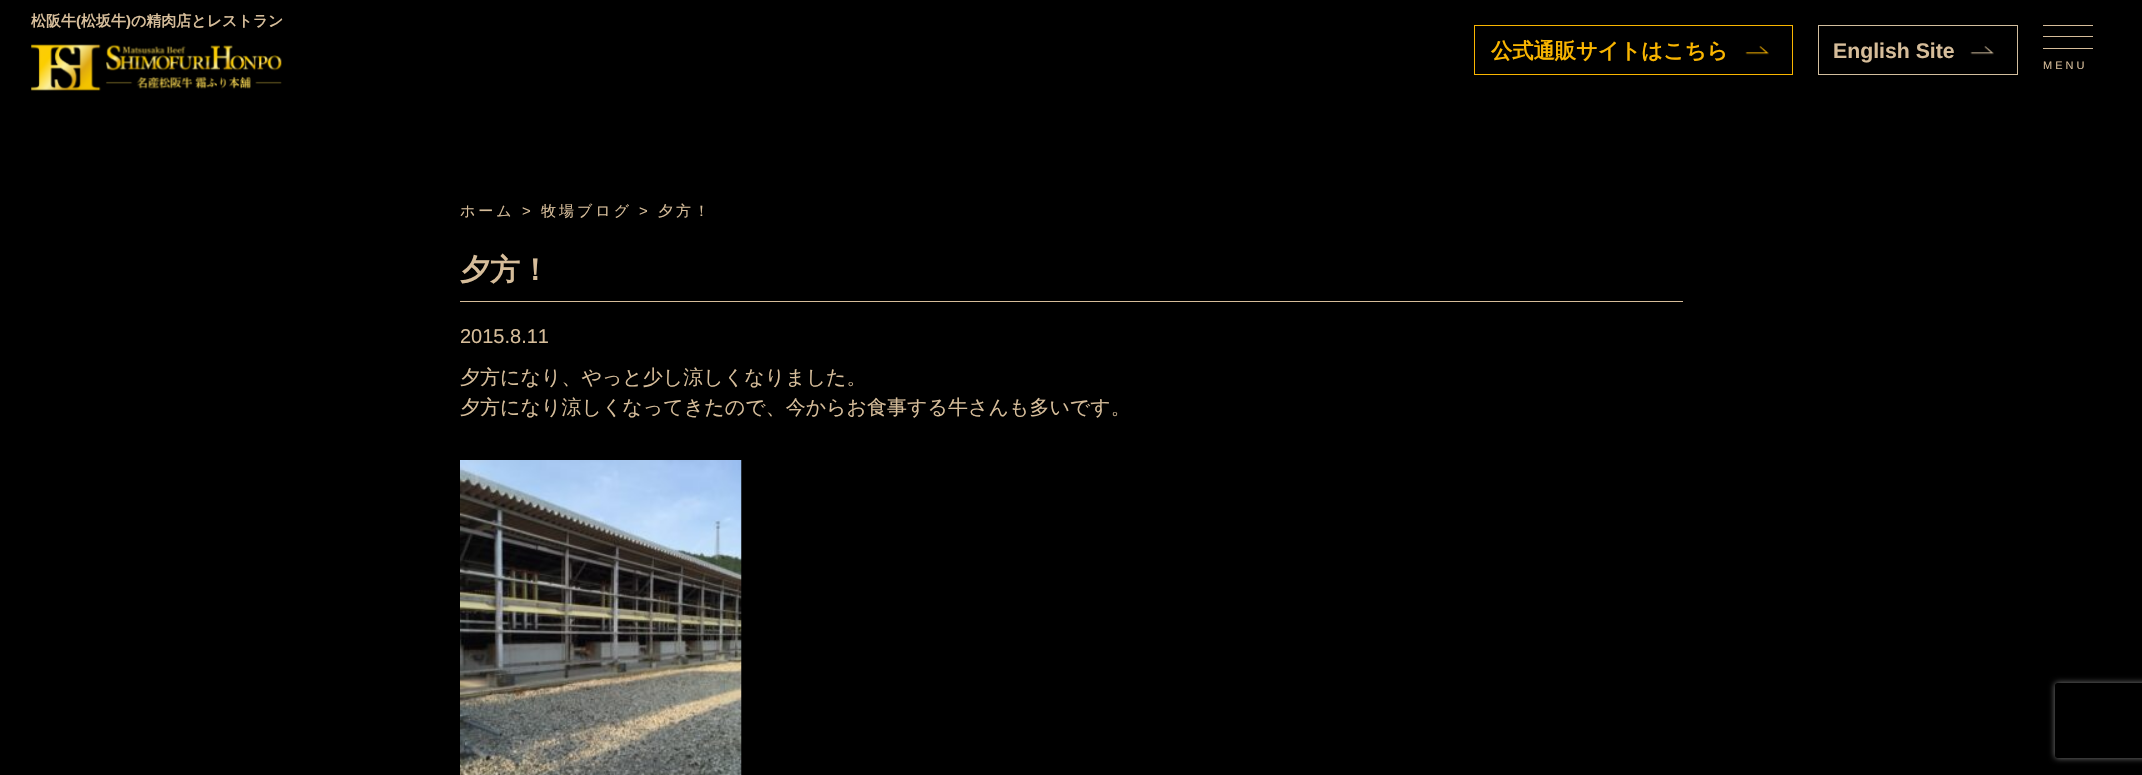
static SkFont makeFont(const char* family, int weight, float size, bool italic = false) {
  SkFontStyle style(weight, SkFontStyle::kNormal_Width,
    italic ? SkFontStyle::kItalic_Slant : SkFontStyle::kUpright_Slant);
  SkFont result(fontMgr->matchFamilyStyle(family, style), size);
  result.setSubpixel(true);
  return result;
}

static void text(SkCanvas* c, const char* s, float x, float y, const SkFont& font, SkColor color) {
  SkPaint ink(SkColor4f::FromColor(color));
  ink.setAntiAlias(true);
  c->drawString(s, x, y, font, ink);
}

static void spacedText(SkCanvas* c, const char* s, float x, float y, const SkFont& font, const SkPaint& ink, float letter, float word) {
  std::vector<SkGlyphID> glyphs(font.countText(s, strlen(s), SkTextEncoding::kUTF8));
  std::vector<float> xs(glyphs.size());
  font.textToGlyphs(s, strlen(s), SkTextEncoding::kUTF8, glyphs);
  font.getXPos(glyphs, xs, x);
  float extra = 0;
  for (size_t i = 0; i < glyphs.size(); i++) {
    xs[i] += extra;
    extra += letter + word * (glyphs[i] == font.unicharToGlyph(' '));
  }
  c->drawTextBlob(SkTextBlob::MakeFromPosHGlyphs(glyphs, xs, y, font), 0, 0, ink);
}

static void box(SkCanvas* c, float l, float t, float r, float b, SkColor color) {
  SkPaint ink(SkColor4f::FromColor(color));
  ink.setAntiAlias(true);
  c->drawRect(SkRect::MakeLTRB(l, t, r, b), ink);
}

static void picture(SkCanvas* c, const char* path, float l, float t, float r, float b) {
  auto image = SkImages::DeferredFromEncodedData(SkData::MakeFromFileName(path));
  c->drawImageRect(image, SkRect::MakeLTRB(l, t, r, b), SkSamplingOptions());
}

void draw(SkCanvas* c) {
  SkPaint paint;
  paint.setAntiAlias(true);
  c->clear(0xff000000);
  SkFont face1 = makeFont("WenQuanYi Zen Hei", 700, 15);
  text(c, "松阪牛", 31, 26, face1, 0xffd6bd9a);
  SkFont face2 = makeFont("Liberation Sans", 700, 15);
  text(c, "(", 76, 26, face2, 0xffd6bd9a);
  text(c, "松坂牛", 81, 26, face1, 0xffd6bd9a);
  text(c, ")", 126, 26, face2, 0xffd6bd9a);
  text(c, "の精肉店とレストラン", 131, 26, face1, 0xffd6bd9a);
  picture(c, "img_01.png", 31, 44, 282, 91);
  paint.setStyle(SkPaint::kStroke_Style);
  paint.setStrokeWidth(1);
  paint.setColor(0xfff9b500);
  c->drawRect(SkRect::MakeLTRB(1474.5f, 25.5f, 1792.5f, 74.5f), paint);
  SkFont face3 = makeFont("WenQuanYi Zen Hei", 700, 21.25f);
  text(c, "公式通販サイトはこちら", 1491, 58, face3, 0xfff9b500);
  picture(c, "img_02.png", 1745, 46, 1769, 55);
  paint.setColor(0xffd2be9e);
  c->drawRect(SkRect::MakeLTRB(1818.5f, 25.5f, 2017.5f, 74.5f), paint);
  SkFont face4 = makeFont("Liberation Sans", 700, 21.25f);
  text(c, "English Site", 1833, 58, face4, 0xffd6bd9a);
  picture(c, "img_03.png", 1970, 46, 1994, 55);
  box(c, 2043, 25, 2093, 26, 0xffd6bd9a);
  box(c, 2043, 36, 2093, 37, 0xffd6bd9a);
  box(c, 2043, 48, 2093, 49, 0xffd6bd9a);
  SkFont face5 = makeFont("Liberation Sans", 400, 11);
  paint.setStyle(SkPaint::kFill_Style);
  paint.setColor(0xffd6bd9a);
  spacedText(c, "MENU", 2043, 69, face5, paint, 3, 0);
  SkFont face6 = makeFont("WenQuanYi Zen Hei", 500, 15);
  spacedText(c, "ホーム", 460, 216, face6, paint, 3, 0);
  SkFont face7 = makeFont("Liberation Sans", 400, 15);
  spacedText(c, ">", 522, 216, face7, paint, 3, 0);
  spacedText(c, "牧場ブログ", 541, 216, face6, paint, 3, 0);
  spacedText(c, ">", 639, 216, face7, paint, 3, 0);
  spacedText(c, "夕方！", 658, 216, face6, paint, 3, 0);
  box(c, 460, 301, 1683, 302, 0xffd6bd9a);
  SkFont face8 = makeFont("WenQuanYi Zen Hei", 700, 30);
  text(c, "夕方！", 460, 280, face8, 0xffd6bd9a);
  SkFont face9 = makeFont("Liberation Sans", 400, 20);
  text(c, "2015.8.11", 460, 343, face9, 0xffd6bd9a);
  SkFont face10 = makeFont("WenQuanYi Zen Hei", 500, 20);
  text(c, "夕方になり、やっと少し涼しくなりました。", 460, 384, face10, 0xffd6bd9a);
  text(c, "夕方になり涼しくなってきたので、今からお食事する牛さんも多いです。", 460, 414, face10, 0xffd6bd9a);
  picture(c, "img_04.png", 460, 460, 742, 775);
  c->save();
  c->clipPath(SkPathBuilder(SkPathFillType::kEvenOdd).moveTo(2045, 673).lineTo(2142, 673).lineTo(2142, 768).lineTo(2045, 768).close().moveTo(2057.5f, 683).lineTo(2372.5f, 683).cubicTo(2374, 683, 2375, 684, 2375, 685.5f).lineTo(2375, 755.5f).cubicTo(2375, 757, 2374, 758, 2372.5f, 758).lineTo(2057.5f, 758).cubicTo(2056, 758, 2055, 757, 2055, 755.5f).lineTo(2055, 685.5f).cubicTo(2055, 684, 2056, 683, 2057.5f, 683).close().detach(), true);
  paint.setColor(0xff808080);
  paint.setMaskFilter(SkMaskFilter::MakeBlur(kNormal_SkBlurStyle, 3));
  c->drawRoundRect(SkRect::MakeLTRB(2055, 683, 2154, 758), 2.5f, 2.5f, paint);
  paint.setMaskFilter(nullptr);
  c->restore();
}
